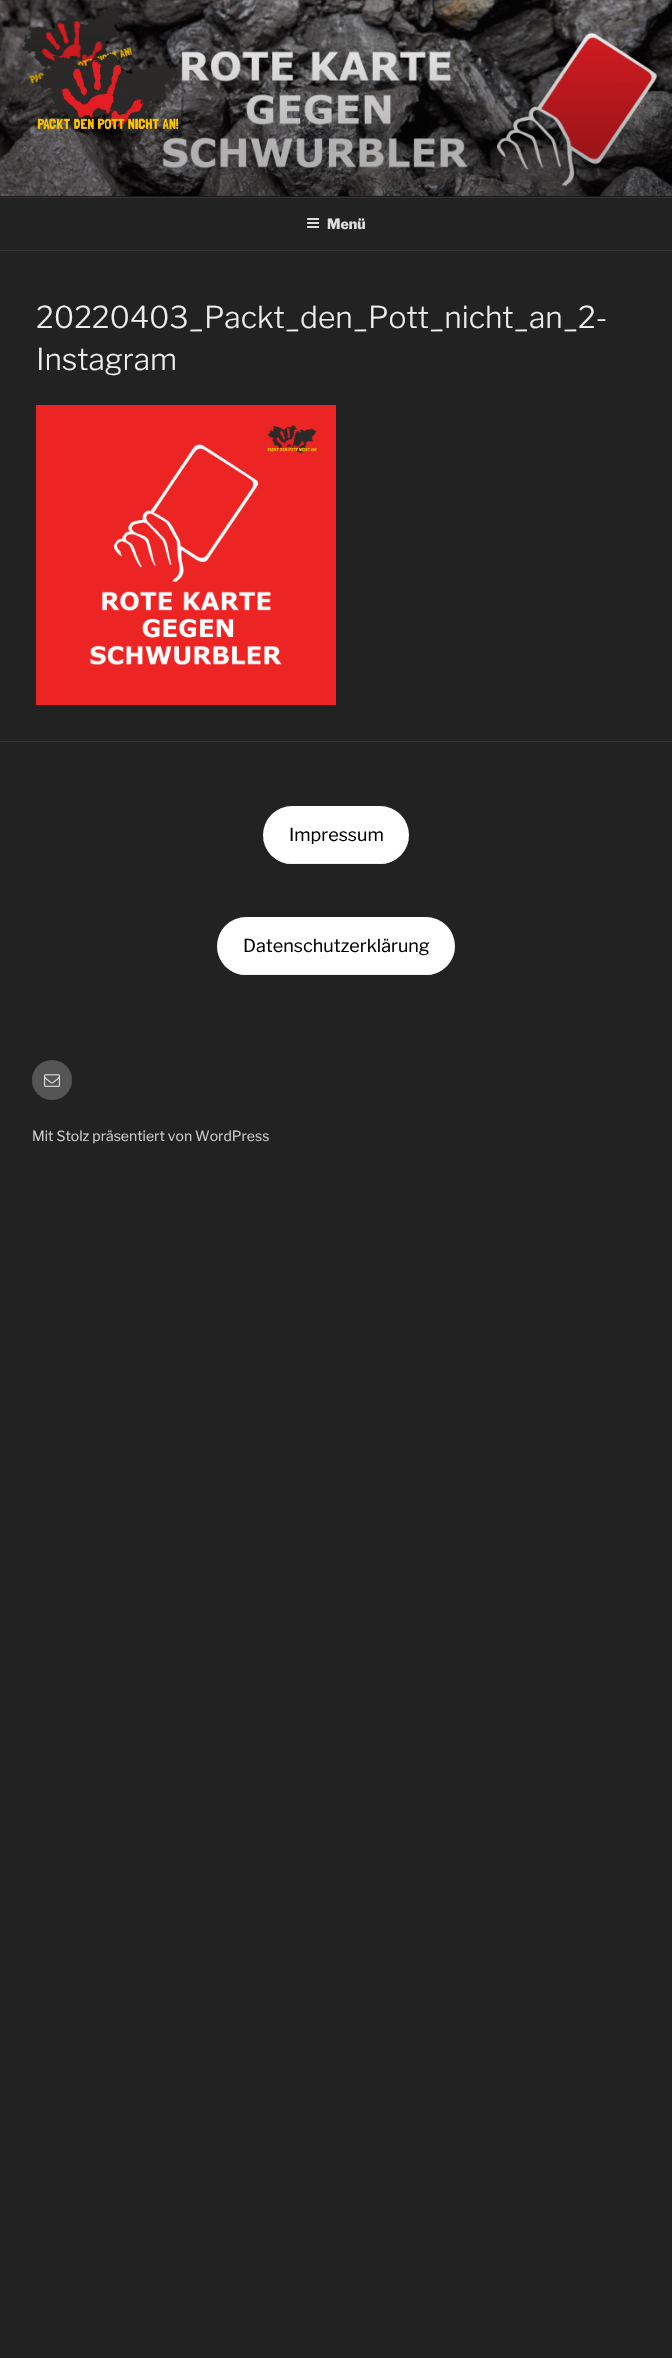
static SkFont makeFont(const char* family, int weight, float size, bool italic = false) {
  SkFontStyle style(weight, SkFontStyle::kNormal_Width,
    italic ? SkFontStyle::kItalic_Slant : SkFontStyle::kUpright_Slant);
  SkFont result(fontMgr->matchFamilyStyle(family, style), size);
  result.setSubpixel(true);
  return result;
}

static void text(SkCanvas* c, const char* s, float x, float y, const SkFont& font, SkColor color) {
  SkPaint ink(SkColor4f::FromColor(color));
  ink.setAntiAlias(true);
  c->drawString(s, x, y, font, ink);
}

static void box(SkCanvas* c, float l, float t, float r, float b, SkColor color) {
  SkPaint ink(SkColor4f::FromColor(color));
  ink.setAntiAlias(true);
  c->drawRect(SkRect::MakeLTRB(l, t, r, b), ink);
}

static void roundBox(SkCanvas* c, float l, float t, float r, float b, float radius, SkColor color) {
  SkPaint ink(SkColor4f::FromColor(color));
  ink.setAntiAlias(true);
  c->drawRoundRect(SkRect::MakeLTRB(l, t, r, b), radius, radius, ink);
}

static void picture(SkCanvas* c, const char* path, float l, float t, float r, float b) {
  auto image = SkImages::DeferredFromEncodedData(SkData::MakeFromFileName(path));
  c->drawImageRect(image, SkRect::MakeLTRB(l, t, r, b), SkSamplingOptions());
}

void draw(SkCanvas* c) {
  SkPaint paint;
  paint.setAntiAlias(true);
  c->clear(0xff222222);
  box(c, 0, 0, 672, 197, 0xff262626);
  picture(c, "img_01.png", 0, 0, 672, 196);
  {
    const SkColor colors[] = {0x00000000, 0x4d000000, 0x4d000000};
    const float stops[] = {0, 0.75f, 1};
    const SkPoint ends[] = {{336, 0}, {336, 197}};
    paint.setShader(SkGradientShader::MakeLinear(ends, colors, stops, 3, SkTileMode::kClamp));
    paint.setAlpha(255);
  }
  c->drawRect(SkRect::MakeLTRB(0, 11, 672, 197), paint);
  picture(c, "img_02.png", 37, 54, 179, 134);
  box(c, 0, 197, 672, 198, 0xff333333);
  box(c, 0, 250, 672, 251, 0xff333333);
  picture(c, "img_03.png", 307, 218, 320, 228);
  SkFont face1 = makeFont("Libre Franklin", 100, 14);
  text(c, "Menü", 327, 229, face1, 0xffdddddd);
  SkFont face2 = makeFont("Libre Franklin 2", 100, 30);
  text(c, "20220403_Packt_den_Pott_nicht_an_2-", 36, 328, face2, 0xffeeeeee);
  text(c, "Instagram", 36, 370, face2, 0xffeeeeee);
  picture(c, "img_04.png", 36, 405, 336, 705);
  box(c, 0, 741, 672, 742, 0xff333333);
  roundBox(c, 263, 806, 409, 864, 29, 0xffffffff);
  paint.setShader(nullptr);
  paint.setColor(0xfff0f0f0);
  c->drawPath(SkPathBuilder().moveTo(263, 834).lineTo(263, 835).cubicTo(263, 851, 276, 864, 292, 864).lineTo(380, 864).cubicTo(396, 864, 409, 851, 409, 835).lineTo(409, 834).cubicTo(409, 850, 396, 863, 380, 863).lineTo(292, 863).cubicTo(276, 863, 263, 850, 263, 834).close().detach(), paint);
  SkFont face3 = makeFont("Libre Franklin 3", 100, 18);
  text(c, "Impressum", 289, 841, face3, 0xff000000);
  roundBox(c, 217, 917, 455, 975, 29, 0xffffffff);
  c->drawPath(SkPathBuilder().moveTo(217, 945).lineTo(217, 946).cubicTo(217, 962, 230, 975, 246, 975).lineTo(426, 975).cubicTo(442, 975, 455, 962, 455, 946).lineTo(455, 945).cubicTo(455, 961, 442, 974, 426, 974).lineTo(246, 974).cubicTo(230, 974, 217, 961, 217, 945).close().detach(), paint);
  text(c, "Datenschutzerklärung", 243, 952, face3, 0xff000000);
  paint.setColor(0xff555555);
  c->drawCircle(52, 1080, 20, paint);
  picture(c, "img_05.png", 44, 1074, 60, 1087);
  SkFont face4 = makeFont("Libre Franklin 3", 100, 14);
  text(c, "Mit Stolz präsentiert von WordPress", 32, 1141, face4, 0xffcccccc);
}
